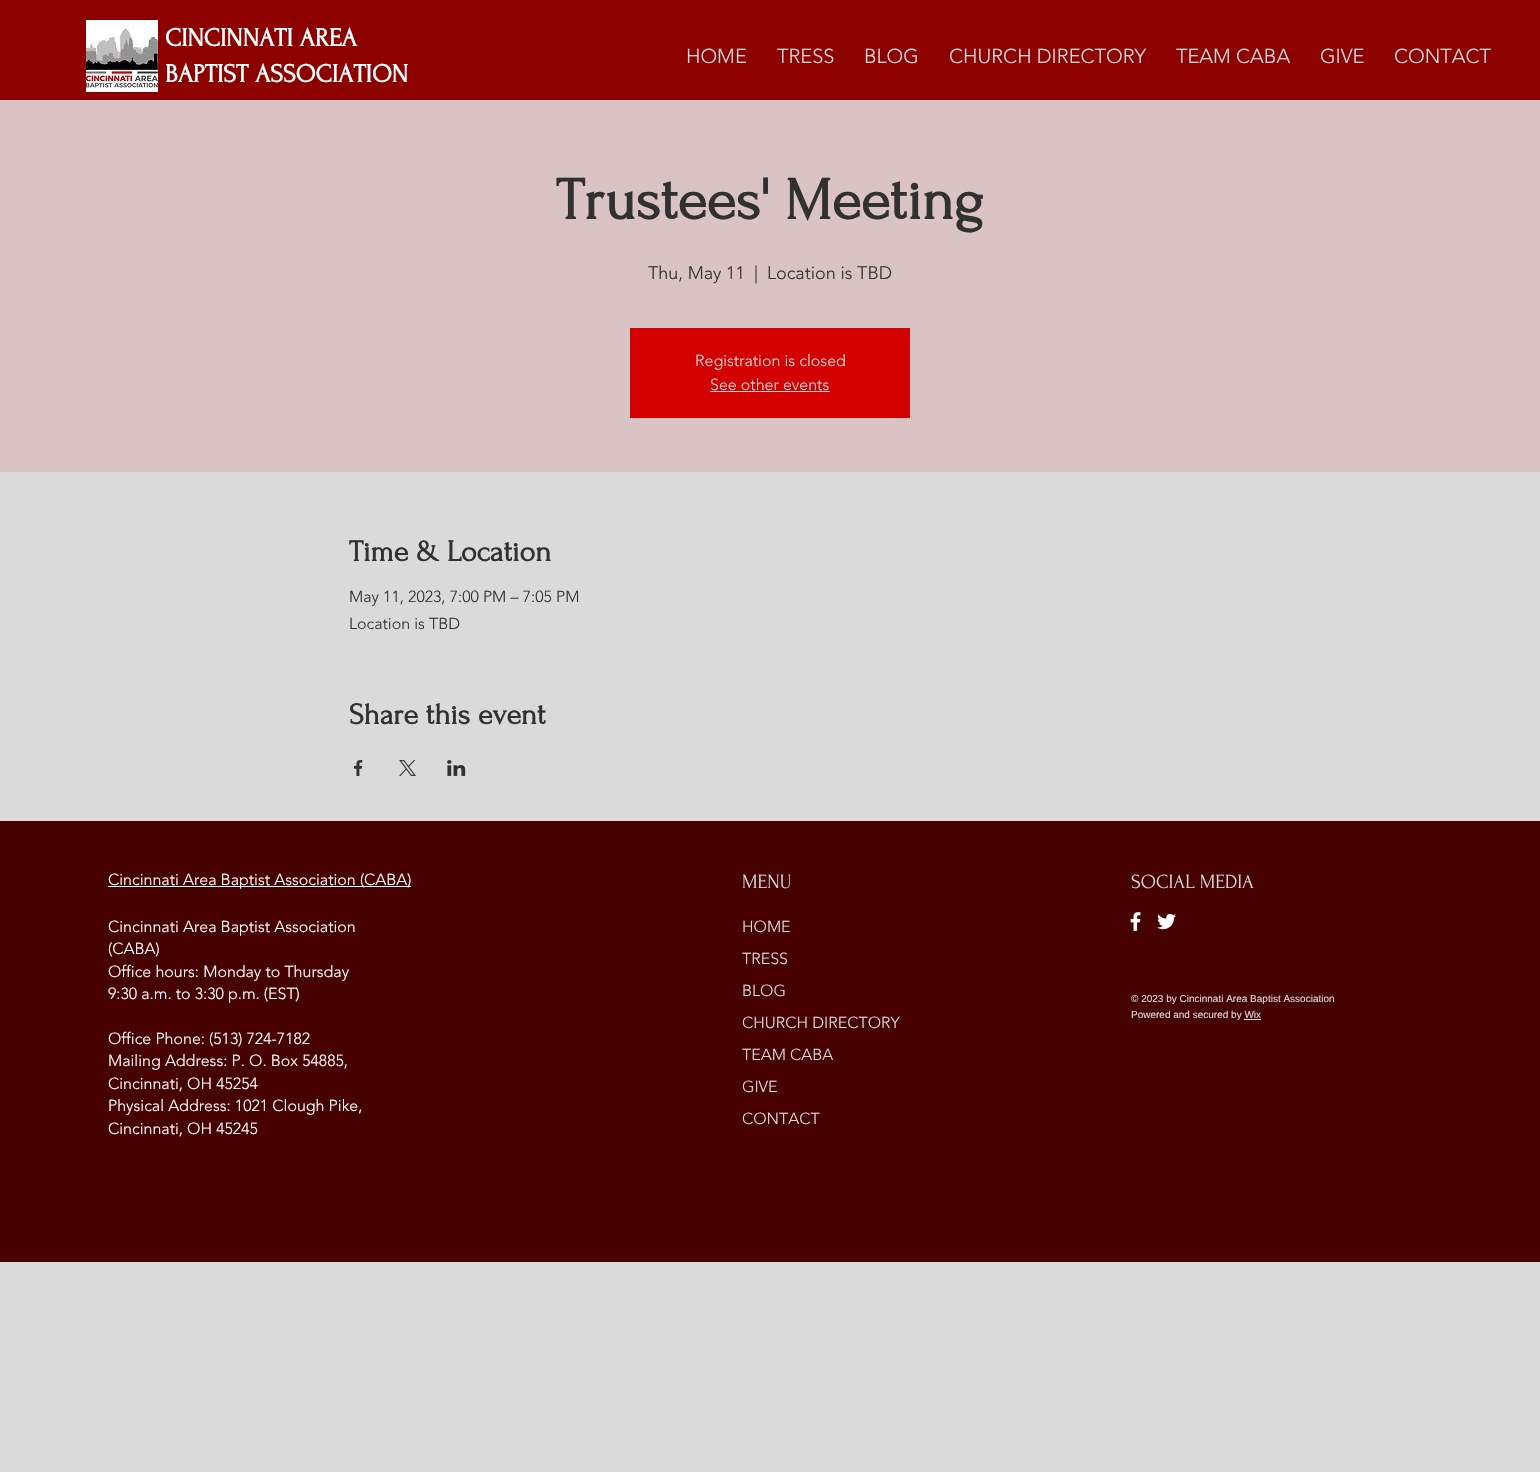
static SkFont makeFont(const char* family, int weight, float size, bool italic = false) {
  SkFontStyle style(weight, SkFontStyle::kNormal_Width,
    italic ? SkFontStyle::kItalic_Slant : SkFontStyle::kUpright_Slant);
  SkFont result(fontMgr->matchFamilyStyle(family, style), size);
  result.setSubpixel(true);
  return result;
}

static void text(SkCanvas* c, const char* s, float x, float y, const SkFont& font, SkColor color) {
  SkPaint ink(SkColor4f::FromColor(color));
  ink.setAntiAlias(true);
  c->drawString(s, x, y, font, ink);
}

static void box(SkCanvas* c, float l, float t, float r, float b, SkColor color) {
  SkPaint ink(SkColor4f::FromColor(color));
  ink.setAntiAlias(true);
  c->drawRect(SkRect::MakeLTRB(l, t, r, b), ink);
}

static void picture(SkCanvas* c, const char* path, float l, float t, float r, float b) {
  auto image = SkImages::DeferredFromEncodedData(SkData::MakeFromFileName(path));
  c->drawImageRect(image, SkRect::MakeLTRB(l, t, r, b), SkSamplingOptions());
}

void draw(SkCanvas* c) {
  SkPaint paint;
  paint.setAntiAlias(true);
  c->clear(0xffdbdadb);
  box(c, 0, 0, 1540, 100, 0xff8d0000);
  picture(c, "img_01.png", 86, 20, 158, 92);
  SkFont face1 = makeFont("Forum", 700, 26);
  text(c, "CINCINNATI AREA", 165, 46, face1, 0xffffffff);
  text(c, "BAPTIST ASSOCIATION", 165, 82, face1, 0xffffffff);
  SkFont face2 = makeFont("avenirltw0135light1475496", 300, 20);
  text(c, "HOME", 686, 63, face2, 0xffdbdadb);
  text(c, "TRESS", 777, 63, face2, 0xffdbdadb);
  text(c, "BLOG", 864, 63, face2, 0xffdbdadb);
  text(c, "CHURCH DIRECTORY", 949, 63, face2, 0xffdbdadb);
  text(c, "TEAM CABA", 1176, 63, face2, 0xffdbdadb);
  text(c, "GIVE", 1320, 63, face2, 0xffdbdadb);
  text(c, "CONTACT", 1394, 63, face2, 0xffdbdadb);
  box(c, 0, 100, 1540, 472, 0xffd9c3c4);
  SkFont face3 = makeFont("Forum", 700, 60);
  text(c, "Trustees' Meeting", 556, 219, face3, 0xff313131);
  SkFont face4 = makeFont("avenirltw0135light1475496", 300, 18);
  text(c, "Thu, May 11", 648, 279, face4, 0xff313131);
  text(c, "|", 754, 279, face4, 0xff313131);
  text(c, "Location is TBD", 767, 279, face4, 0xff313131);
  box(c, 630, 328, 910, 418, 0xffd30000);
  SkFont face5 = makeFont("avenirltw0135light1475496", 300, 16);
  text(c, "Registration is closed", 695, 366, face5, 0xffdbdadb);
  text(c, "See other events", 710, 390, face5, 0xffdbdadb);
  box(c, 710, 391, 830, 392, 0xffdbdadb);
  SkFont face6 = makeFont("Forum", 700, 30);
  text(c, "Time & Location", 349, 561, face6, 0xff313131);
  text(c, "May 11, 2023, 7:00 PM – 7:05 PM", 349, 602, face5, 0xff313131);
  text(c, "Location is TBD", 349, 629, face5, 0xff313131);
  text(c, "Share this event", 349, 724, face6, 0xff313131);
  picture(c, "img_02.png", 354, 760, 363, 776);
  picture(c, "img_03.png", 399, 760, 416, 776);
  picture(c, "img_04.png", 447, 760, 466, 776);
  box(c, 0, 821, 1540, 1262, 0xff460000);
  box(c, 108, 886, 411, 887, 0xffffffff);
  text(c, "Cincinnati Area Baptist Association (CABA)", 108, 885, face5, 0xffffffff);
  text(c, "Cincinnati Area Baptist Association", 108, 932, face5, 0xffffffff);
  text(c, "(CABA)", 108, 954, face5, 0xffffffff);
  text(c, "Office hours: Monday to Thursday", 108, 977, face5, 0xffffffff);
  text(c, "9:30 a.m. to 3:30 p.m. (EST)", 108, 999, face5, 0xffffffff);
  text(c, "Office Phone: (513) 724-7182", 108, 1044, face5, 0xffffffff);
  text(c, "Mailing Address: P. O. Box 54885,", 108, 1066, face5, 0xffffffff);
  text(c, "Cincinnati, OH 45254", 108, 1089, face5, 0xffffffff);
  text(c, "Physical Address: 1021 Clough Pike,", 108, 1111, face5, 0xffffffff);
  text(c, "Cincinnati, OH 45245", 108, 1134, face5, 0xffffffff);
  SkFont face7 = makeFont("Forum", 400, 20);
  text(c, "MENU", 742, 888, face7, 0xffdbdadb);
  text(c, "HOME", 742, 932, face5, 0xffdbdadb);
  text(c, "TRESS", 742, 964, face5, 0xffdbdadb);
  text(c, "BLOG", 742, 996, face5, 0xffdbdadb);
  text(c, "CHURCH DIRECTORY", 742, 1028, face5, 0xffdbdadb);
  text(c, "TEAM CABA", 742, 1060, face5, 0xffdbdadb);
  text(c, "GIVE", 742, 1092, face5, 0xffdbdadb);
  text(c, "CONTACT", 742, 1124, face5, 0xffdbdadb);
  text(c, "SOCIAL MEDIA", 1131, 888, face7, 0xffdbdadb);
  picture(c, "img_05.png", 1130, 912, 1141, 931);
  picture(c, "img_06.png", 1157, 913, 1176, 930);
  SkFont face8 = makeFont("Liberation Sans", 400, 10);
  text(c, "© 2023 by Cincinnati Area Baptist Association", 1131, 1002, face8, 0xffdbdadb);
  text(c, "Powered and secured by Wix", 1131, 1018, face8, 0xffdbdadb);
  box(c, 1244, 1019, 1261, 1020, 0xffdbdadb);
}
